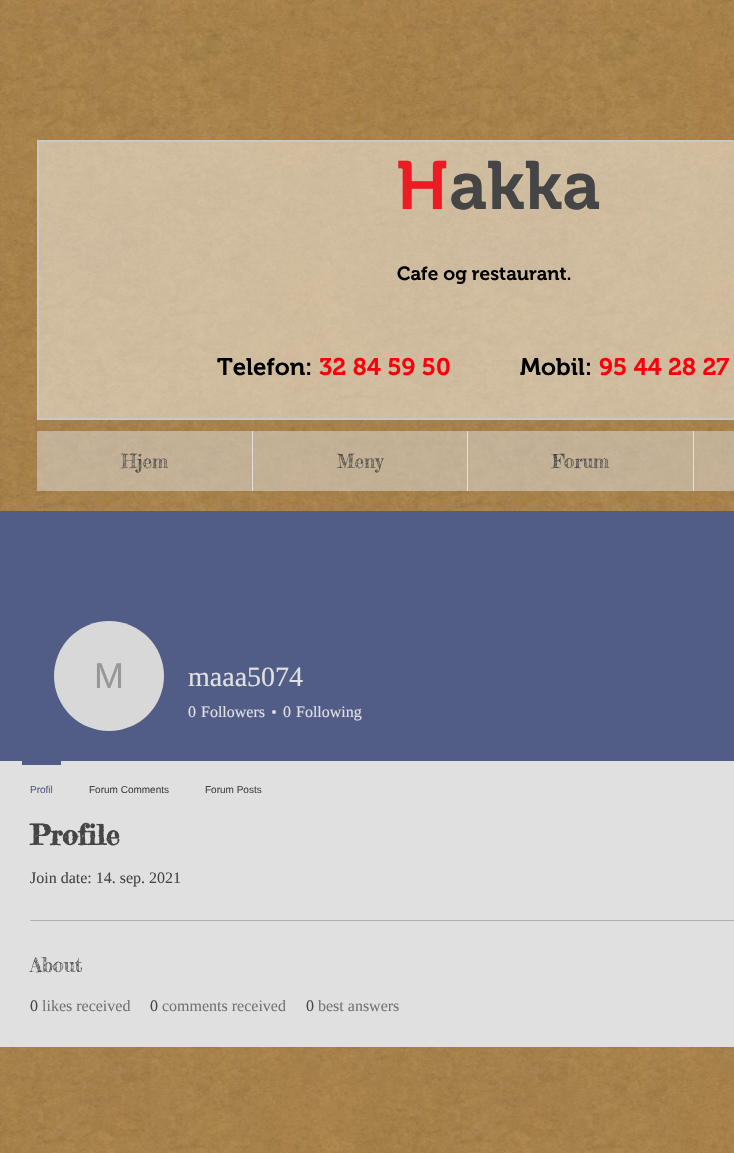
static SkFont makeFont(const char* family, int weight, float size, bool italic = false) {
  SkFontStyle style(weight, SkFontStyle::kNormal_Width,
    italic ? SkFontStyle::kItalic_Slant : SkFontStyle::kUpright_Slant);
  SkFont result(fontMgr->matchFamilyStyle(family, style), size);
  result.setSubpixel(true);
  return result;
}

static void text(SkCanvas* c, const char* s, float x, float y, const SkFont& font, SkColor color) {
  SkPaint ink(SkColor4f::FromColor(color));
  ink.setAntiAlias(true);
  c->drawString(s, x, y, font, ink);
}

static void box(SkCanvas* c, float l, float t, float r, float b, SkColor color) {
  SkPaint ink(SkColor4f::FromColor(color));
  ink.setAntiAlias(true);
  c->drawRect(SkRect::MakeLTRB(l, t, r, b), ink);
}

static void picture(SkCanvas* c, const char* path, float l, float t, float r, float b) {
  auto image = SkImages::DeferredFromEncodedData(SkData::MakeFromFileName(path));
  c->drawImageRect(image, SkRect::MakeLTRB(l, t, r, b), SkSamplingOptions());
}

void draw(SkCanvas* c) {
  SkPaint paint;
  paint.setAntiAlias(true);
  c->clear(0xffffffff);
  picture(c, "img_01.png", 0, 0, 734, 1153);
  paint.setColor(0x75ffffff);
  c->drawRect(SkRect::MakeLTRB(38, 141, 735, 419), paint);
  paint.setStyle(SkPaint::kStroke_Style);
  paint.setStrokeWidth(2);
  paint.setColor(0xffc8c8c8);
  c->drawRect(SkRect::MakeLTRB(38, 141, 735, 419), paint);
  SkFont face1 = makeFont("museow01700", 600, 68);
  text(c, "H", 396, 209, face1, 0xffed1c24);
  text(c, "akka", 449, 209, face1, 0xff454545);
  SkFont face2 = makeFont("museow01700", 600, 19);
  text(c, "Cafe og restaurant.", 397, 280, face2, 0xff000000);
  SkFont face3 = makeFont("museow01700", 600, 24);
  text(c, "Telefon:", 217, 375, face3, 0xff000000);
  text(c, "32 84 59 50", 319, 375, face3, 0xfff9000a);
  text(c, "Mobil:", 520, 375, face3, 0xff000000);
  text(c, "95 44 28 27", 599, 375, face3, 0xfff9000a);
  box(c, 37, 431, 734, 491, 0x80e0e0e0);
  SkFont face4 = makeFont("Fredericka the Great", 400, 19);
  text(c, "Hjem", 121, 468, face4, 0xff454545);
  box(c, 252, 431, 253, 491, 0xffe0e0e0);
  text(c, "Meny", 337, 468, face4, 0xff454545);
  box(c, 467, 431, 468, 491, 0xffe0e0e0);
  text(c, "Forum", 552, 468, face4, 0xff454545);
  box(c, 693, 431, 694, 491, 0xffe0e0e0);
  box(c, 0, 511, 734, 761, 0xff515d87);
  paint.setStyle(SkPaint::kFill_Style);
  paint.setColor(0xffd8d8d8);
  c->drawCircle(109, 676, 55, paint);
  SkFont face5 = makeFont("Liberation Sans", 400, 36);
  text(c, "M", 94, 688, face5, 0xff979797);
  SkFont face6 = makeFont("Liberation Serif", 400, 28);
  text(c, "maaa5074", 188, 686, face6, 0xffe0e0e0);
  SkFont face7 = makeFont("Liberation Serif", 400, 16);
  text(c, "0", 188, 717, face7, 0xffe0e0e0);
  text(c, "Followers", 201, 717, face7, 0xffe0e0e0);
  paint.setColor(0xffe0e0e0);
  c->drawCircle(274, 712, 2, paint);
  text(c, "0", 283, 717, face7, 0xffe0e0e0);
  text(c, "Following", 296, 717, face7, 0xffe0e0e0);
  box(c, 0, 761, 734, 1047, 0xffe0e0e0);
  box(c, 22, 761, 61, 765, 0xff515d87);
  SkFont face8 = makeFont("Liberation Sans", 400, 10);
  text(c, "Profil", 30, 793, face8, 0xff515d87);
  text(c, "Forum Comments", 89, 793, face8, 0xff454545);
  text(c, "Forum Posts", 205, 793, face8, 0xff454545);
  SkFont face9 = makeFont("Fredericka the Great", 700, 28);
  text(c, "Profile", 30, 845, face9, 0xff454545);
  text(c, "Join date: 14. sep. 2021", 30, 883, face7, 0xff454545);
  box(c, 30, 920, 734, 921, 0xffb2b2b2);
  SkFont face10 = makeFont("Fredericka the Great", 400, 20);
  text(c, "About", 30, 972, face10, 0xff454545);
  text(c, "0", 30, 1011, face7, 0xff454545);
  text(c, "likes received", 42, 1011, face7, 0xff747474);
  text(c, "0", 150, 1011, face7, 0xff454545);
  text(c, "comments received", 162, 1011, face7, 0xff747474);
  text(c, "0", 306, 1011, face7, 0xff454545);
  text(c, "best answers", 318, 1011, face7, 0xff747474);
}
